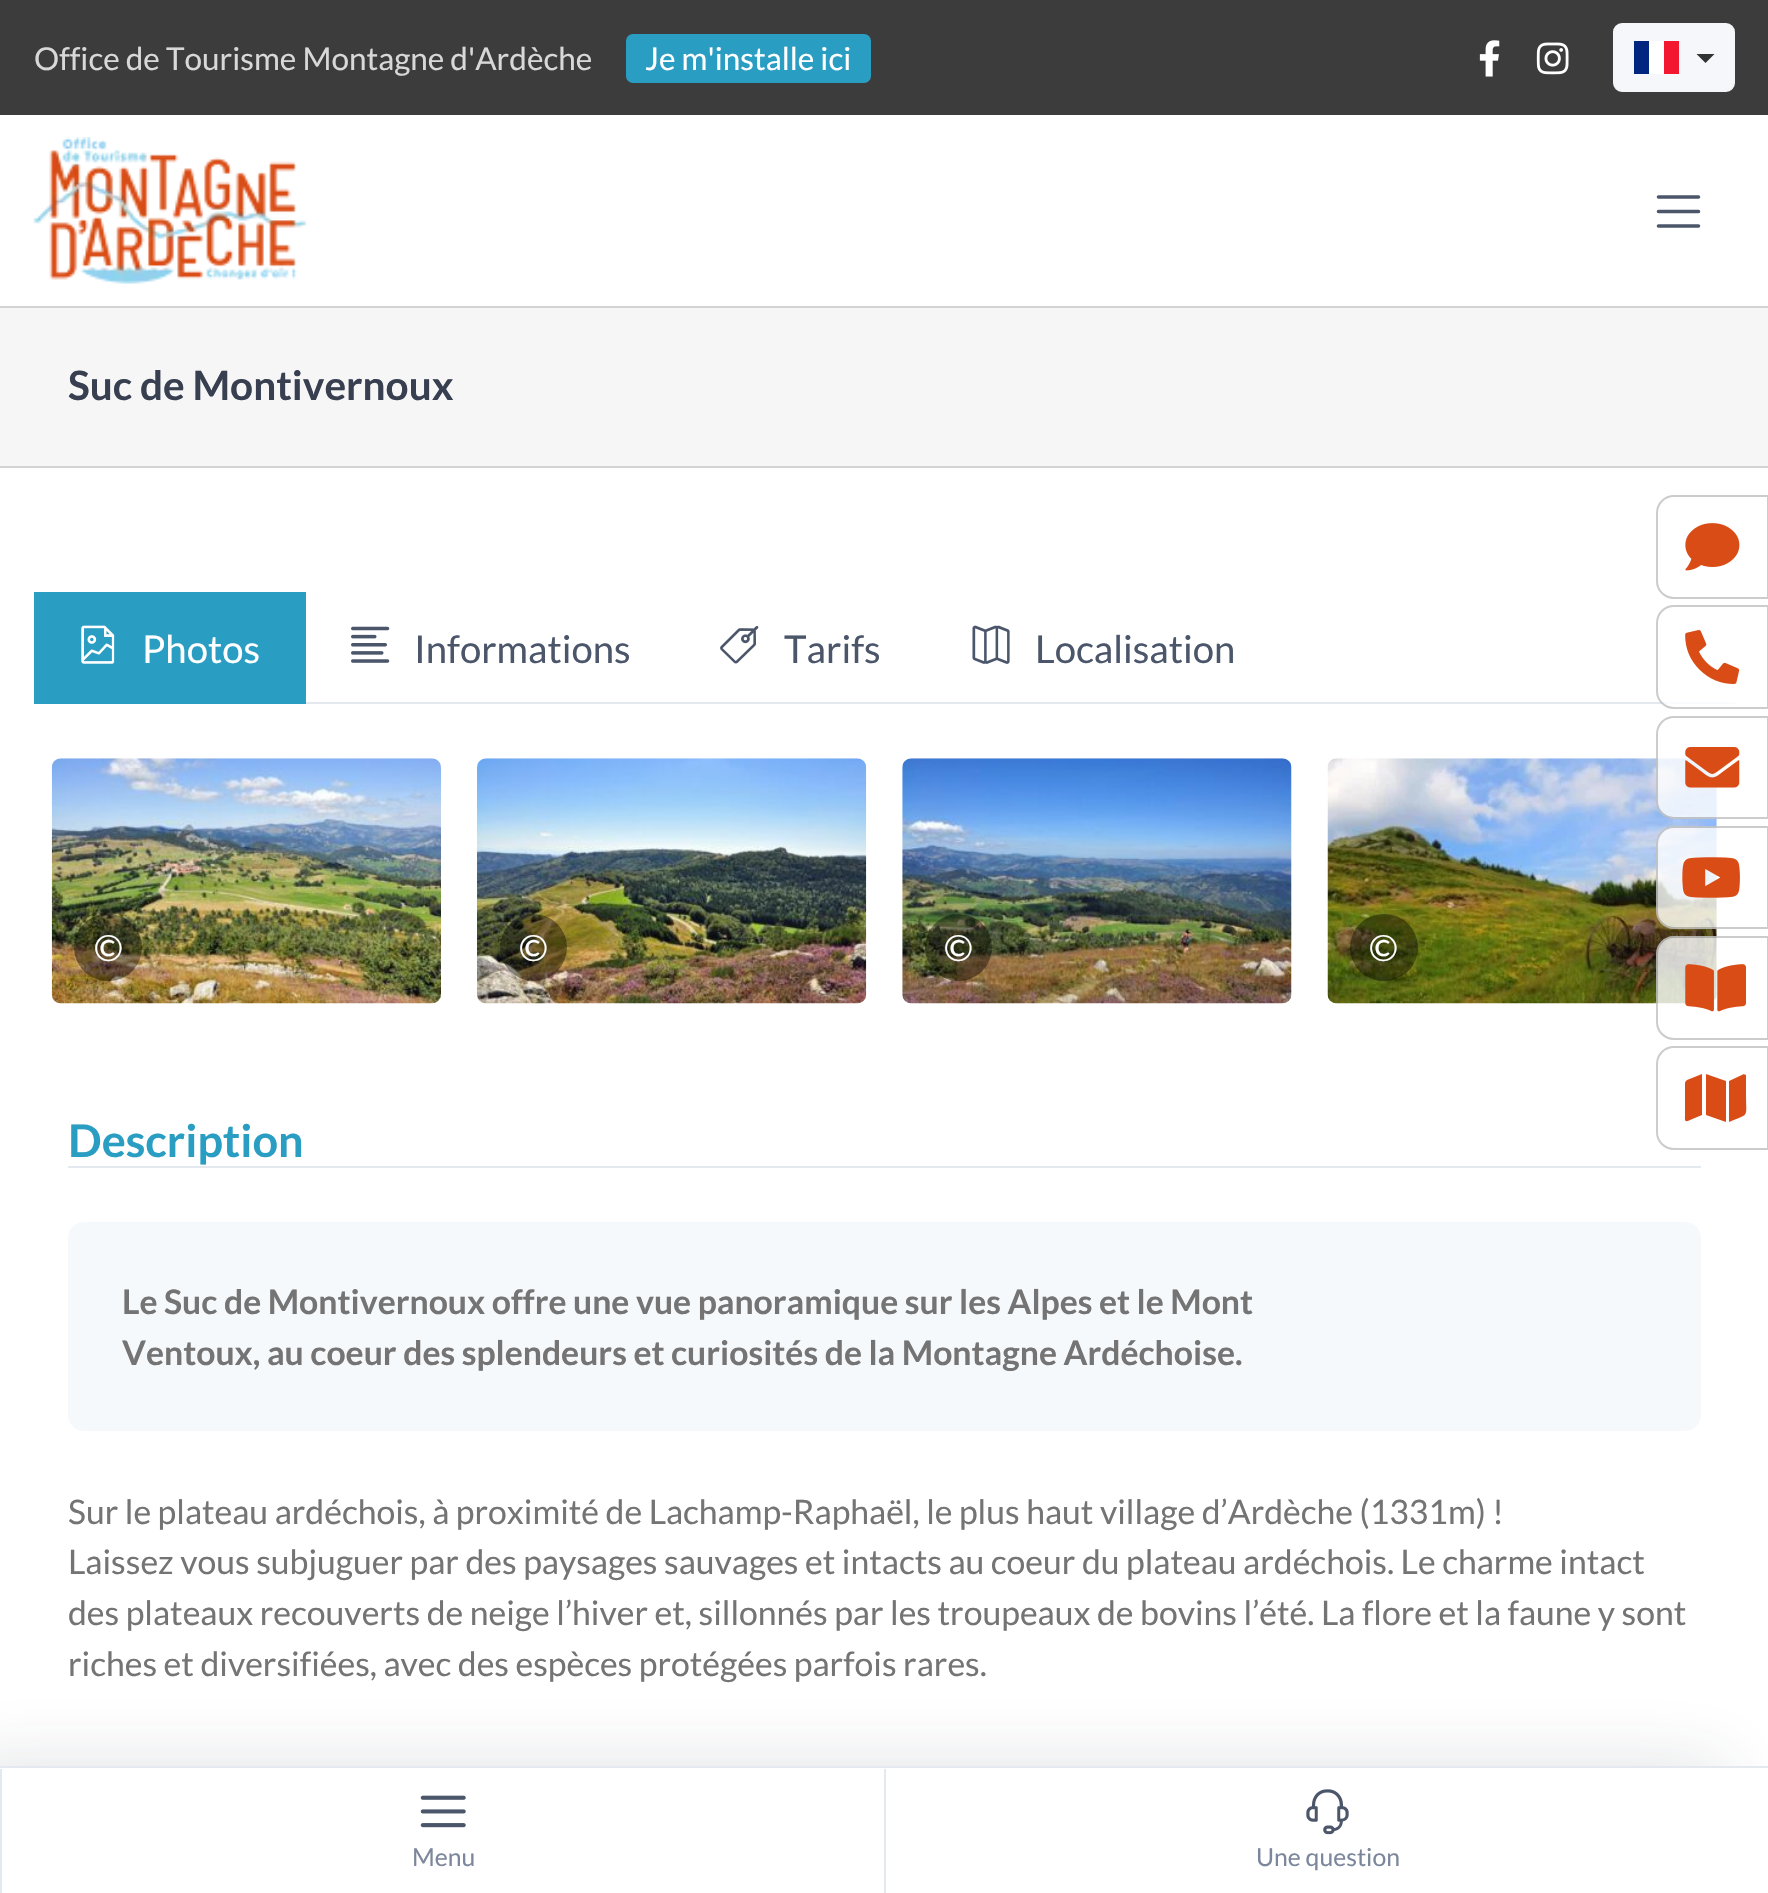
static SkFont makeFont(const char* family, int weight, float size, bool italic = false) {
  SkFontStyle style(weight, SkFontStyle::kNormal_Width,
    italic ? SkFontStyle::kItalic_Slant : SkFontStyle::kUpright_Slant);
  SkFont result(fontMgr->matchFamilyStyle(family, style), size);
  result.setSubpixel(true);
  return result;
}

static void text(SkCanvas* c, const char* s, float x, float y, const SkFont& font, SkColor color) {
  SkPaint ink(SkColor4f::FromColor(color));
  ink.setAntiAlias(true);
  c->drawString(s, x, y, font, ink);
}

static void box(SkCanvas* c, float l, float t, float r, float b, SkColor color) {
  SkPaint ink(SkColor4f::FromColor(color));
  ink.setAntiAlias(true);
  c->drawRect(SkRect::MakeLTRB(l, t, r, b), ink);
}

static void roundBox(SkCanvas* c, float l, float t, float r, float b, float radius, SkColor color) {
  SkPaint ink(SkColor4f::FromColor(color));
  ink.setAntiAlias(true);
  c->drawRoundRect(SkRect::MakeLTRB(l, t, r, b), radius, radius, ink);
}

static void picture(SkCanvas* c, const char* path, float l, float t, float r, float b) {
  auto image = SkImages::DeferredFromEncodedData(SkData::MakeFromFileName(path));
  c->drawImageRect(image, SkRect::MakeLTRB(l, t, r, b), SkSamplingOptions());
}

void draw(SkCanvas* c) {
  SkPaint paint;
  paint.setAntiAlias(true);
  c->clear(0xffffffff);
  box(c, 0, 0, 1768, 115, 0xff3c3c3c);
  SkFont face1 = makeFont("Lato", 400, 31.5f);
  text(c, "Office de Tourisme Montagne d'Ardèche", 34, 70, face1, 0xffd8d8d8);
  roundBox(c, 626, 34, 871, 83, 7, 0xff299dc2);
  text(c, "Je m'installe ici", 645, 70, face1, 0xffffffff);
  picture(c, "img_01.png", 1479, 40, 1500, 77);
  picture(c, "img_02.png", 1536, 42, 1569, 75);
  paint.setColor(0xfff5f7fa);
  c->drawRoundRect(SkRect::MakeLTRB(1614, 24, 1734, 91), 8, 8, paint);
  paint.setStyle(SkPaint::kStroke_Style);
  paint.setStrokeWidth(2);
  paint.setColor(0xfff4f6fa);
  c->drawRoundRect(SkRect::MakeLTRB(1614, 24, 1734, 91), 8, 8, paint);
  box(c, 1634, 41, 1649, 74, 0xff00267f);
  box(c, 1649, 41, 1664, 74, 0xffffffff);
  box(c, 1664, 41, 1679, 74, 0xfff31830);
  paint.setStyle(SkPaint::kFill_Style);
  paint.setColor(0xff333333);
  c->drawPath(SkPathBuilder().moveTo(1696.5f, 54).lineTo(1714.5f, 54).lineTo(1705.5f, 63).close().detach(), paint);
  picture(c, "img_03.png", 33, 137, 306, 284);
  paint.setStyle(SkPaint::kStroke_Style);
  paint.setStrokeWidth(3.6f);
  paint.setStrokeCap(SkPaint::kRound_Cap);
  paint.setColor(0xff4b566b);
  c->drawPath(SkPathBuilder().moveTo(1658.5f, 197).lineTo(1698.5f, 197).moveTo(1658.5f, 211.5f).lineTo(1698.5f, 211.5f).moveTo(1658.5f, 226).lineTo(1698.5f, 226).detach(), paint);
  box(c, 0, 308, 1768, 466, 0xfff6f6f6);
  box(c, 0, 306, 1768, 308, 0xffd2d3d4);
  box(c, 0, 466, 1768, 468, 0xffd2d3d4);
  SkFont face2 = makeFont("Lato", 700, 40.5f);
  text(c, "Suc de Montivernoux", 68, 400, face2, 0xff373f50);
  box(c, 306, 702, 1735, 704, 0xffe3e9ef);
  box(c, 34, 592, 306, 704, 0xff299dc2);
  picture(c, "img_04.png", 81, 625, 115, 664);
  SkFont face3 = makeFont("Lato", 400, 38.25f);
  text(c, "Photos", 142, 663, face3, 0xffffffff);
  picture(c, "img_05.png", 351, 626, 390, 663);
  text(c, "Informations", 414, 663, face3, 0xff4b566b);
  picture(c, "img_06.png", 720, 625, 759, 664);
  text(c, "Tarifs", 784, 663, face3, 0xff4b566b);
  picture(c, "img_07.png", 972, 625, 1010, 664);
  text(c, "Localisation", 1035, 663, face3, 0xff4b566b);
  picture(c, "img_08.png", 51, 758, 441, 1004);
  roundBox(c, 74, 914, 142, 981, 33.5f, 0x66000000);
  SkFont face4 = makeFont("Lato", 400, 36);
  text(c, "©", 94, 961, face4, 0xffffffff);
  picture(c, "img_09.png", 477, 758, 867, 1004);
  paint.setStyle(SkPaint::kFill_Style);
  paint.setColor(0x66000000);
  c->drawCircle(533.5f, 947.5f, 33.5f, paint);
  text(c, "©", 519, 961, face4, 0xffffffff);
  picture(c, "img_10.png", 902, 758, 1292, 1004);
  c->drawCircle(958.5f, 947.5f, 33.5f, paint);
  text(c, "©", 944, 961, face4, 0xffffffff);
  picture(c, "img_11.png", 1327, 758, 1717, 1004);
  roundBox(c, 1350, 914, 1418, 981, 33.5f, 0x66000000);
  text(c, "©", 1369, 961, face4, 0xffffffff);
  box(c, 68, 1166, 1701, 1168, 0xffe3e9ef);
  SkFont face5 = makeFont("Lato", 700, 45);
  text(c, "Description", 68, 1157, face5, 0xff299dc2);
  roundBox(c, 68, 1222, 1701, 1431, 16, 0xfff6f9fc);
  SkFont face6 = makeFont("Lato", 700, 33.75f);
  text(c, "Le Suc de Montivernoux offre une vue panoramique sur les Alpes et le Mont", 122, 1314, face6, 0xff747474);
  text(c, "Ventoux, au coeur des splendeurs et curiosités de la Montagne Ardéchoise.", 122, 1365, face6, 0xff747474);
  SkFont face7 = makeFont("Lato", 400, 33.75f);
  text(c, "Sur le plateau ardéchois, à proximité de Lachamp-Raphaël, le plus haut village d’Ardèche (1331m) !", 68, 1524, face7, 0xff747474);
  text(c, "Laissez vous subjuguer par des paysages sauvages et intacts au coeur du plateau ardéchois. Le charme intact", 68, 1574, face7, 0xff747474);
  text(c, "des plateaux recouverts de neige l’hiver et, sillonnés par les troupeaux de bovins l’été. La flore et la faune y sont", 68, 1625, face7, 0xff747474);
  text(c, "riches et diversifiées, avec des espèces protégées parfois rares.", 68, 1676, face7, 0xff747474);
  paint.setStyle(SkPaint::kStroke_Style);
  paint.setStrokeWidth(2);
  paint.setStrokeCap(SkPaint::kButt_Cap);
  paint.setColor(0xffcccccc);
  c->drawPath(SkPathBuilder().moveTo(1674, 496).lineTo(1768, 496).lineTo(1768, 598).lineTo(1674, 598).cubicTo(1664.5f, 598, 1657, 590.5f, 1657, 581).lineTo(1657, 513).cubicTo(1657, 503.5f, 1664.5f, 496, 1674, 496).close().detach(), paint);
  picture(c, "img_12.png", 1685, 523, 1740, 571);
  paint.setStyle(SkPaint::kFill_Style);
  paint.setColor(0xccffffff);
  c->drawPath(SkPathBuilder().moveTo(1674, 605).lineTo(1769, 605).lineTo(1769, 709).lineTo(1674, 709).cubicTo(1664, 709, 1656, 701, 1656, 691).lineTo(1656, 623).cubicTo(1656, 613, 1664, 605, 1674, 605).close().detach(), paint);
  paint.setStyle(SkPaint::kStroke_Style);
  paint.setColor(0x33000000);
  c->drawPath(SkPathBuilder().moveTo(1674, 606).lineTo(1768, 606).lineTo(1768, 708).lineTo(1674, 708).cubicTo(1664.5f, 708, 1657, 700.5f, 1657, 691).lineTo(1657, 623).cubicTo(1657, 613.5f, 1664.5f, 606, 1674, 606).close().detach(), paint);
  picture(c, "img_13.png", 1685, 630, 1740, 684);
  paint.setStyle(SkPaint::kFill_Style);
  paint.setColor(0xccffffff);
  c->drawPath(SkPathBuilder().moveTo(1674, 716).lineTo(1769, 716).lineTo(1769, 819).lineTo(1674, 819).cubicTo(1664, 819, 1656, 811, 1656, 801).lineTo(1656, 734).cubicTo(1656, 724, 1664, 716, 1674, 716).close().detach(), paint);
  paint.setStyle(SkPaint::kStroke_Style);
  paint.setColor(0x33000000);
  c->drawPath(SkPathBuilder().moveTo(1674, 717).lineTo(1768, 717).lineTo(1768, 818).lineTo(1674, 818).cubicTo(1664.5f, 818, 1657, 810.5f, 1657, 801).lineTo(1657, 734).cubicTo(1657, 724.5f, 1664.5f, 717, 1674, 717).close().detach(), paint);
  picture(c, "img_14.png", 1685, 747, 1740, 788);
  paint.setStyle(SkPaint::kFill_Style);
  paint.setColor(0xccffffff);
  c->drawPath(SkPathBuilder().moveTo(1674, 826).lineTo(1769, 826).lineTo(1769, 929).lineTo(1674, 929).cubicTo(1664, 929, 1656, 921, 1656, 911).lineTo(1656, 844).cubicTo(1656, 834, 1664, 826, 1674, 826).close().detach(), paint);
  paint.setStyle(SkPaint::kStroke_Style);
  paint.setColor(0x33000000);
  c->drawPath(SkPathBuilder().moveTo(1674, 827).lineTo(1768, 827).lineTo(1768, 928).lineTo(1674, 928).cubicTo(1664.5f, 928, 1657, 920.5f, 1657, 911).lineTo(1657, 844).cubicTo(1657, 834.5f, 1664.5f, 827, 1674, 827).close().detach(), paint);
  picture(c, "img_15.png", 1682, 857, 1740, 898);
  paint.setStyle(SkPaint::kFill_Style);
  paint.setColor(0xccffffff);
  c->drawPath(SkPathBuilder().moveTo(1674, 936).lineTo(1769, 936).lineTo(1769, 1040).lineTo(1674, 1040).cubicTo(1664, 1040, 1656, 1032, 1656, 1022).lineTo(1656, 954).cubicTo(1656, 944, 1664, 936, 1674, 936).close().detach(), paint);
  paint.setStyle(SkPaint::kStroke_Style);
  paint.setColor(0x33000000);
  c->drawPath(SkPathBuilder().moveTo(1674, 937).lineTo(1768, 937).lineTo(1768, 1039).lineTo(1674, 1039).cubicTo(1664.5f, 1039, 1657, 1031.5f, 1657, 1022).lineTo(1657, 954).cubicTo(1657, 944.5f, 1664.5f, 937, 1674, 937).close().detach(), paint);
  picture(c, "img_16.png", 1685, 964, 1746, 1012);
  paint.setColor(0xffcccccc);
  c->drawPath(SkPathBuilder().moveTo(1674, 1047).lineTo(1768, 1047).lineTo(1768, 1149).lineTo(1674, 1149).cubicTo(1664.5f, 1149, 1657, 1141.5f, 1657, 1132).lineTo(1657, 1064).cubicTo(1657, 1054.5f, 1664.5f, 1047, 1674, 1047).close().detach(), paint);
  paint.setStyle(SkPaint::kFill_Style);
  paint.setColor(0xffd94c15);
  c->drawPath(SkPathBuilder().moveTo(1685, 1083).cubicTo(1685, 1082, 1686, 1081, 1687, 1080).lineTo(1702, 1074).lineTo(1702, 1115).lineTo(1690, 1120).cubicTo(1684, 1123, 1685, 1120, 1685, 1114).close().moveTo(1706, 1115).lineTo(1706, 1074).lineTo(1726, 1081).lineTo(1726, 1122).close().moveTo(1744, 1074).cubicTo(1744, 1074, 1745, 1075, 1746, 1075).lineTo(1746, 1094).cubicTo(1746, 1119, 1750, 1113, 1729, 1122).lineTo(1729, 1081).close().detach(), paint);
  paint.setColor(0x262b3445);
  paint.setMaskFilter(SkMaskFilter::MakeBlur(kNormal_SkBlurStyle, 36));
  c->drawRect(SkRect::MakeLTRB(-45, 1766, 1724, 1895), paint);
  paint.setMaskFilter(nullptr);
  box(c, 0, 1768, 1768, 1893, 0xffffffff);
  box(c, 0, 1766, 1768, 1768, 0xffe3e9ef);
  box(c, 0, 1769, 2, 1893, 0xffe3e9ef);
  picture(c, "img_17.png", 420, 1795, 466, 1828);
  SkFont face8 = makeFont("Lato", 400, 24.75f);
  text(c, "Menu", 412, 1866, face8, 0xff7d879c);
  box(c, 884, 1769, 886, 1893, 0xffe3e9ef);
  picture(c, "img_18.png", 1306, 1789, 1349, 1835);
  text(c, "Une question", 1256, 1866, face8, 0xff7d879c);
}
